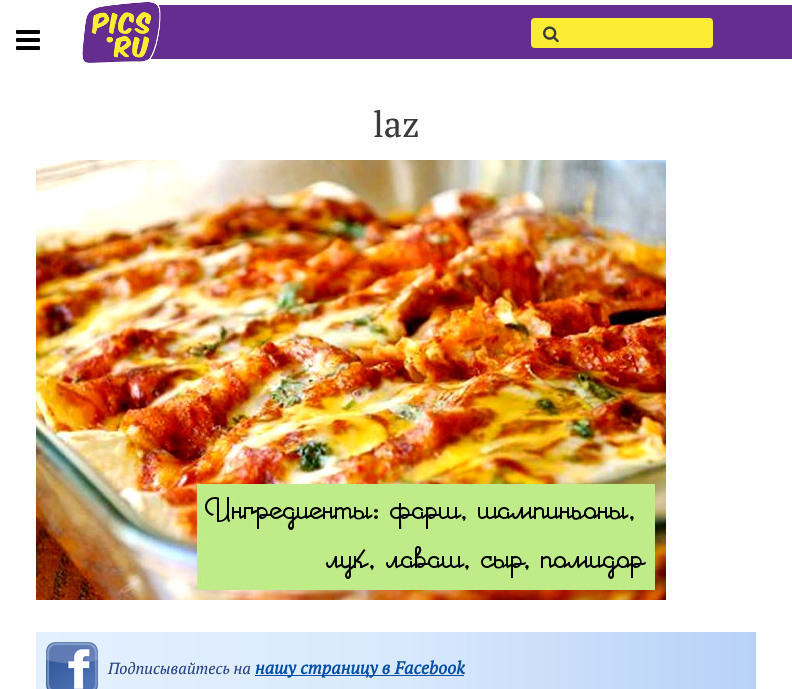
static SkFont makeFont(const char* family, int weight, float size, bool italic = false) {
  SkFontStyle style(weight, SkFontStyle::kNormal_Width,
    italic ? SkFontStyle::kItalic_Slant : SkFontStyle::kUpright_Slant);
  SkFont result(fontMgr->matchFamilyStyle(family, style), size);
  result.setSubpixel(true);
  return result;
}

static void text(SkCanvas* c, const char* s, float x, float y, const SkFont& font, SkColor color) {
  SkPaint ink(SkColor4f::FromColor(color));
  ink.setAntiAlias(true);
  c->drawString(s, x, y, font, ink);
}

static void box(SkCanvas* c, float l, float t, float r, float b, SkColor color) {
  SkPaint ink(SkColor4f::FromColor(color));
  ink.setAntiAlias(true);
  c->drawRect(SkRect::MakeLTRB(l, t, r, b), ink);
}

static void roundBox(SkCanvas* c, float l, float t, float r, float b, float radius, SkColor color) {
  SkPaint ink(SkColor4f::FromColor(color));
  ink.setAntiAlias(true);
  c->drawRoundRect(SkRect::MakeLTRB(l, t, r, b), radius, radius, ink);
}

static void picture(SkCanvas* c, const char* path, float l, float t, float r, float b) {
  auto image = SkImages::DeferredFromEncodedData(SkData::MakeFromFileName(path));
  c->drawImageRect(image, SkRect::MakeLTRB(l, t, r, b), SkSamplingOptions());
}

void draw(SkCanvas* c) {
  SkPaint paint;
  paint.setAntiAlias(true);
  c->clear(0xffffffff);
  picture(c, "img_01.png", 82, 2, 792, 63);
  picture(c, "img_02.png", 16, 30, 40, 50);
  roundBox(c, 531, 18, 713, 48, 4, 0xfff9ec32);
  picture(c, "img_03.png", 543, 26, 559, 42);
  SkFont face1 = makeFont("PT Serif", 400, 36);
  text(c, "laz", 373, 137, face1, 0xff3a3a3a);
  picture(c, "img_04.png", 36, 160, 666, 600);
  {
    const SkColor colors[] = {0xffe3f0ff, 0xffd9e9fd, 0xffb8d1f7};
    const float stops[] = {0, 0.5f, 1};
    const SkPoint ends[] = {{36, 668}, {756, 668}};
    paint.setShader(SkGradientShader::MakeLinear(ends, colors, stops, 3, SkTileMode::kClamp));
    paint.setAlpha(255);
  }
  c->drawRect(SkRect::MakeLTRB(36, 632, 756, 689), paint);
  picture(c, "img_05.png", 46, 642, 98, 689);
  SkFont face2 = makeFont("PT Serif", 400, 16, true);
  text(c, "Подписывайтесь на", 108, 674, face2, 0xff2b4386);
  box(c, 255, 675, 464, 676, 0xff044faa);
  SkFont face3 = makeFont("PT Serif", 700, 17.6f, true);
  text(c, "нашу страницу в Facebook", 255, 674, face3, 0xff044faa);
}
